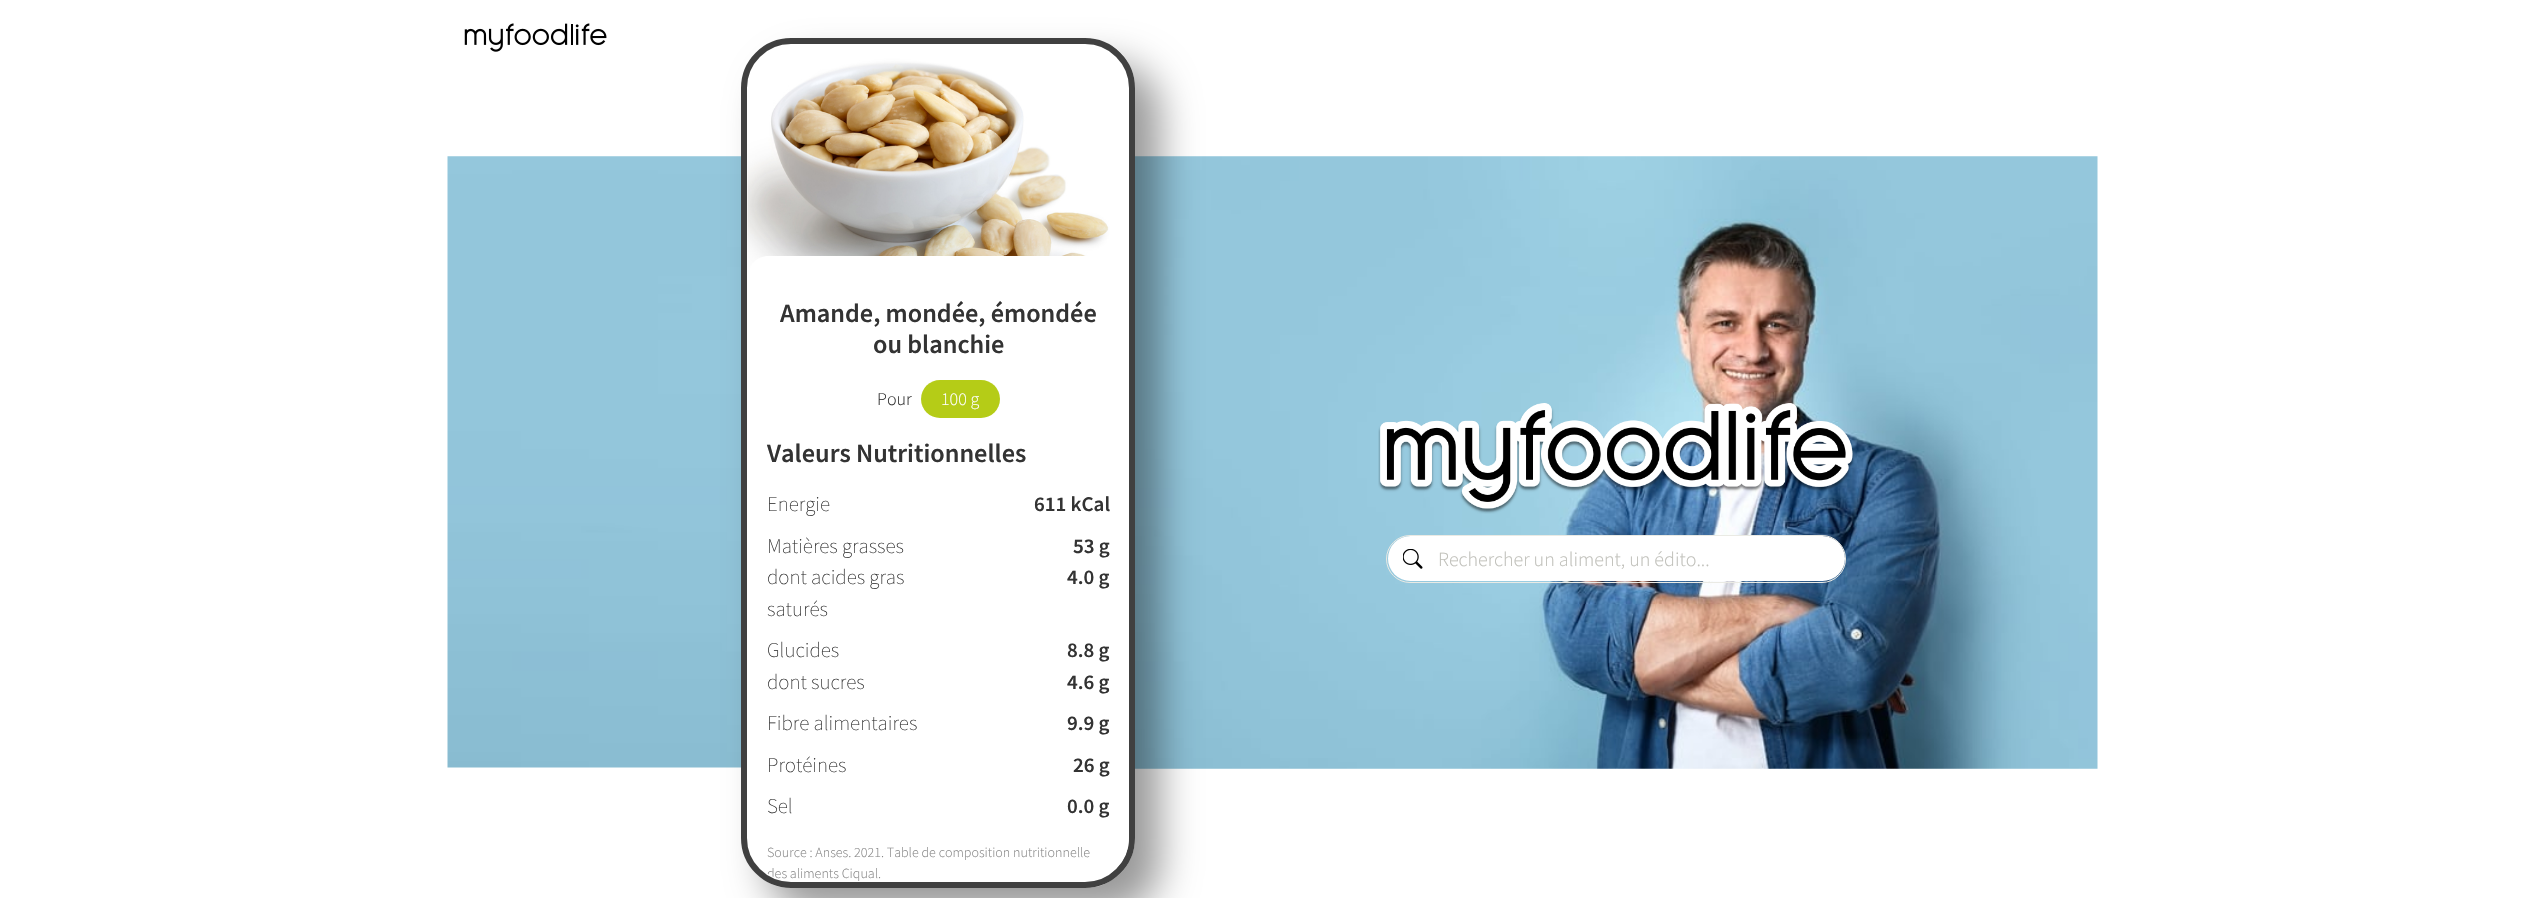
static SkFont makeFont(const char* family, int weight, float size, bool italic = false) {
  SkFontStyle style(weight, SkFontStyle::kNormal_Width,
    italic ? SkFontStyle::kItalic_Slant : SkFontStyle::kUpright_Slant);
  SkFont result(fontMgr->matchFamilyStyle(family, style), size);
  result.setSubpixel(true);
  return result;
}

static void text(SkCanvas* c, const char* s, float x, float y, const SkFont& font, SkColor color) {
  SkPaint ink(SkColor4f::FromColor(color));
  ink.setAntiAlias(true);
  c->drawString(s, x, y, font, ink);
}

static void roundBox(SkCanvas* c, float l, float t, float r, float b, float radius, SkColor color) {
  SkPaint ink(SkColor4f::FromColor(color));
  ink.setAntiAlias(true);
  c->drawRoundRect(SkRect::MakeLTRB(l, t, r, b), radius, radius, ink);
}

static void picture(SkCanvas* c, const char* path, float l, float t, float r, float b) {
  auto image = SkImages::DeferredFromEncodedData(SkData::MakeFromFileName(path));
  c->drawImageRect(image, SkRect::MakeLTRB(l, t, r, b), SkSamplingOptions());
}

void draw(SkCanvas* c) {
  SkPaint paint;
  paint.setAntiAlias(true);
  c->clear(0xffffffff);
  picture(c, "img_01.png", 464, 23, 607, 52);
  picture(c, "img_02.png", 447, 156, 741, 768);
  picture(c, "img_04.png", 1135, 156, 2098, 769);
  paint.setColor(0x66000000);
  paint.setMaskFilter(SkMaskFilter::MakeBlur(kNormal_SkBlurStyle, 19));
  c->drawRoundRect(SkRect::MakeLTRB(766, 63, 1160, 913), 50, 50, paint);
  paint.setMaskFilter(nullptr);
  roundBox(c, 741, 38, 1135, 888, 50, 0xffffffff);
  picture(c, "img_03.png", 747, 46, 1128, 298);
  paint.setStyle(SkPaint::kStroke_Style);
  paint.setStrokeWidth(6);
  paint.setColor(0xff404040);
  c->drawRoundRect(SkRect::MakeLTRB(744, 41, 1132, 885), 47, 47, paint);
  paint.setStyle(SkPaint::kFill_Style);
  paint.setColor(0xffffffff);
  c->drawPath(SkPathBuilder().moveTo(768, 256).lineTo(1109, 256).cubicTo(1120, 256, 1129, 265, 1129, 276).lineTo(1129, 837).cubicTo(1129, 861.5f, 1109.5f, 881, 1085, 881).lineTo(792, 881).cubicTo(767.5f, 881, 748, 861.5f, 748, 837).lineTo(748, 276).cubicTo(748, 265, 757, 256, 768, 256).close().detach(), paint);
  SkFont face1 = makeFont("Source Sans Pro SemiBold", 600, 26.25f);
  text(c, "Amande, mondée, émondée", 780, 322, face1, 0xff333333);
  text(c, "ou blanchie", 873, 353, face1, 0xff333333);
  SkFont face2 = makeFont("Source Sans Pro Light", 300, 18);
  text(c, "Pour", 877, 405, face2, 0xff333333);
  roundBox(c, 921, 380, 1000, 418, 19, 0xffb5cc17);
  text(c, "100 g", 941, 405, face2, 0xffffffff);
  text(c, "Valeurs Nutritionnelles", 767, 462, face1, 0xff333333);
  SkFont face3 = makeFont("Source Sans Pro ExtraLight", 200, 21);
  text(c, "Energie", 767, 511, face3, 0xff333333);
  SkFont face4 = makeFont("Source Sans Pro SemiBold", 600, 21);
  text(c, "611 kCal", 1034, 511, face4, 0xff333333);
  text(c, "Matières grasses", 767, 553, face3, 0xff333333);
  text(c, "53 g", 1073, 553, face4, 0xff333333);
  text(c, "dont acides gras", 767, 584, face3, 0xff333333);
  text(c, "saturés", 767, 616, face3, 0xff333333);
  text(c, "4.0 g", 1067, 584, face4, 0xff333333);
  text(c, "Glucides", 767, 657, face3, 0xff333333);
  text(c, "8.8 g", 1067, 657, face4, 0xff333333);
  text(c, "dont sucres", 767, 689, face3, 0xff333333);
  text(c, "4.6 g", 1067, 689, face4, 0xff333333);
  text(c, "Fibre alimentaires", 767, 730, face3, 0xff333333);
  text(c, "9.9 g", 1067, 730, face4, 0xff333333);
  text(c, "Protéines", 767, 772, face3, 0xff333333);
  text(c, "26 g", 1073, 772, face4, 0xff333333);
  text(c, "Sel", 767, 813, face3, 0xff333333);
  text(c, "0.0 g", 1067, 813, face4, 0xff333333);
  SkFont face5 = makeFont("Source Sans Pro Light", 300, 14);
  text(c, "Source : Anses. 2021. Table de composition nutritionnelle", 767, 857, face5, 0xff888888);
  c->save();
  c->clipPath(SkPathBuilder().moveTo(792, 44).lineTo(1085, 44).cubicTo(1109.5f, 44, 1129, 63.5f, 1129, 88).lineTo(1129, 837).cubicTo(1129, 861.5f, 1109.5f, 881, 1085, 881).lineTo(792, 881).cubicTo(767.5f, 881, 748, 861.5f, 748, 837).lineTo(748, 88).cubicTo(748, 63.5f, 767.5f, 44, 792, 44).close().detach(), true);
  text(c, "des aliments Ciqual.", 767, 878, face5, 0xff888888);
  c->restore();
  picture(c, "img_05.png", 1378, 403, 1855, 514);
  roundBox(c, 1388, 536, 1845, 581, 22.5f, 0xffffffff);
  picture(c, "img_06.png", 1403, 549, 1423, 569);
  paint.setStyle(SkPaint::kStroke_Style);
  paint.setStrokeWidth(1);
  paint.setColor(0xffeaeae4);
  c->drawRoundRect(SkRect::MakeLTRB(1386.5f, 535.5f, 1845.5f, 582.5f), 23.5f, 23.5f, paint);
  SkFont face6 = makeFont("Source Sans Pro Light", 300, 20);
  text(c, "Rechercher un aliment, un édito...", 1438, 566, face6, 0xffc0c0ba);
}
